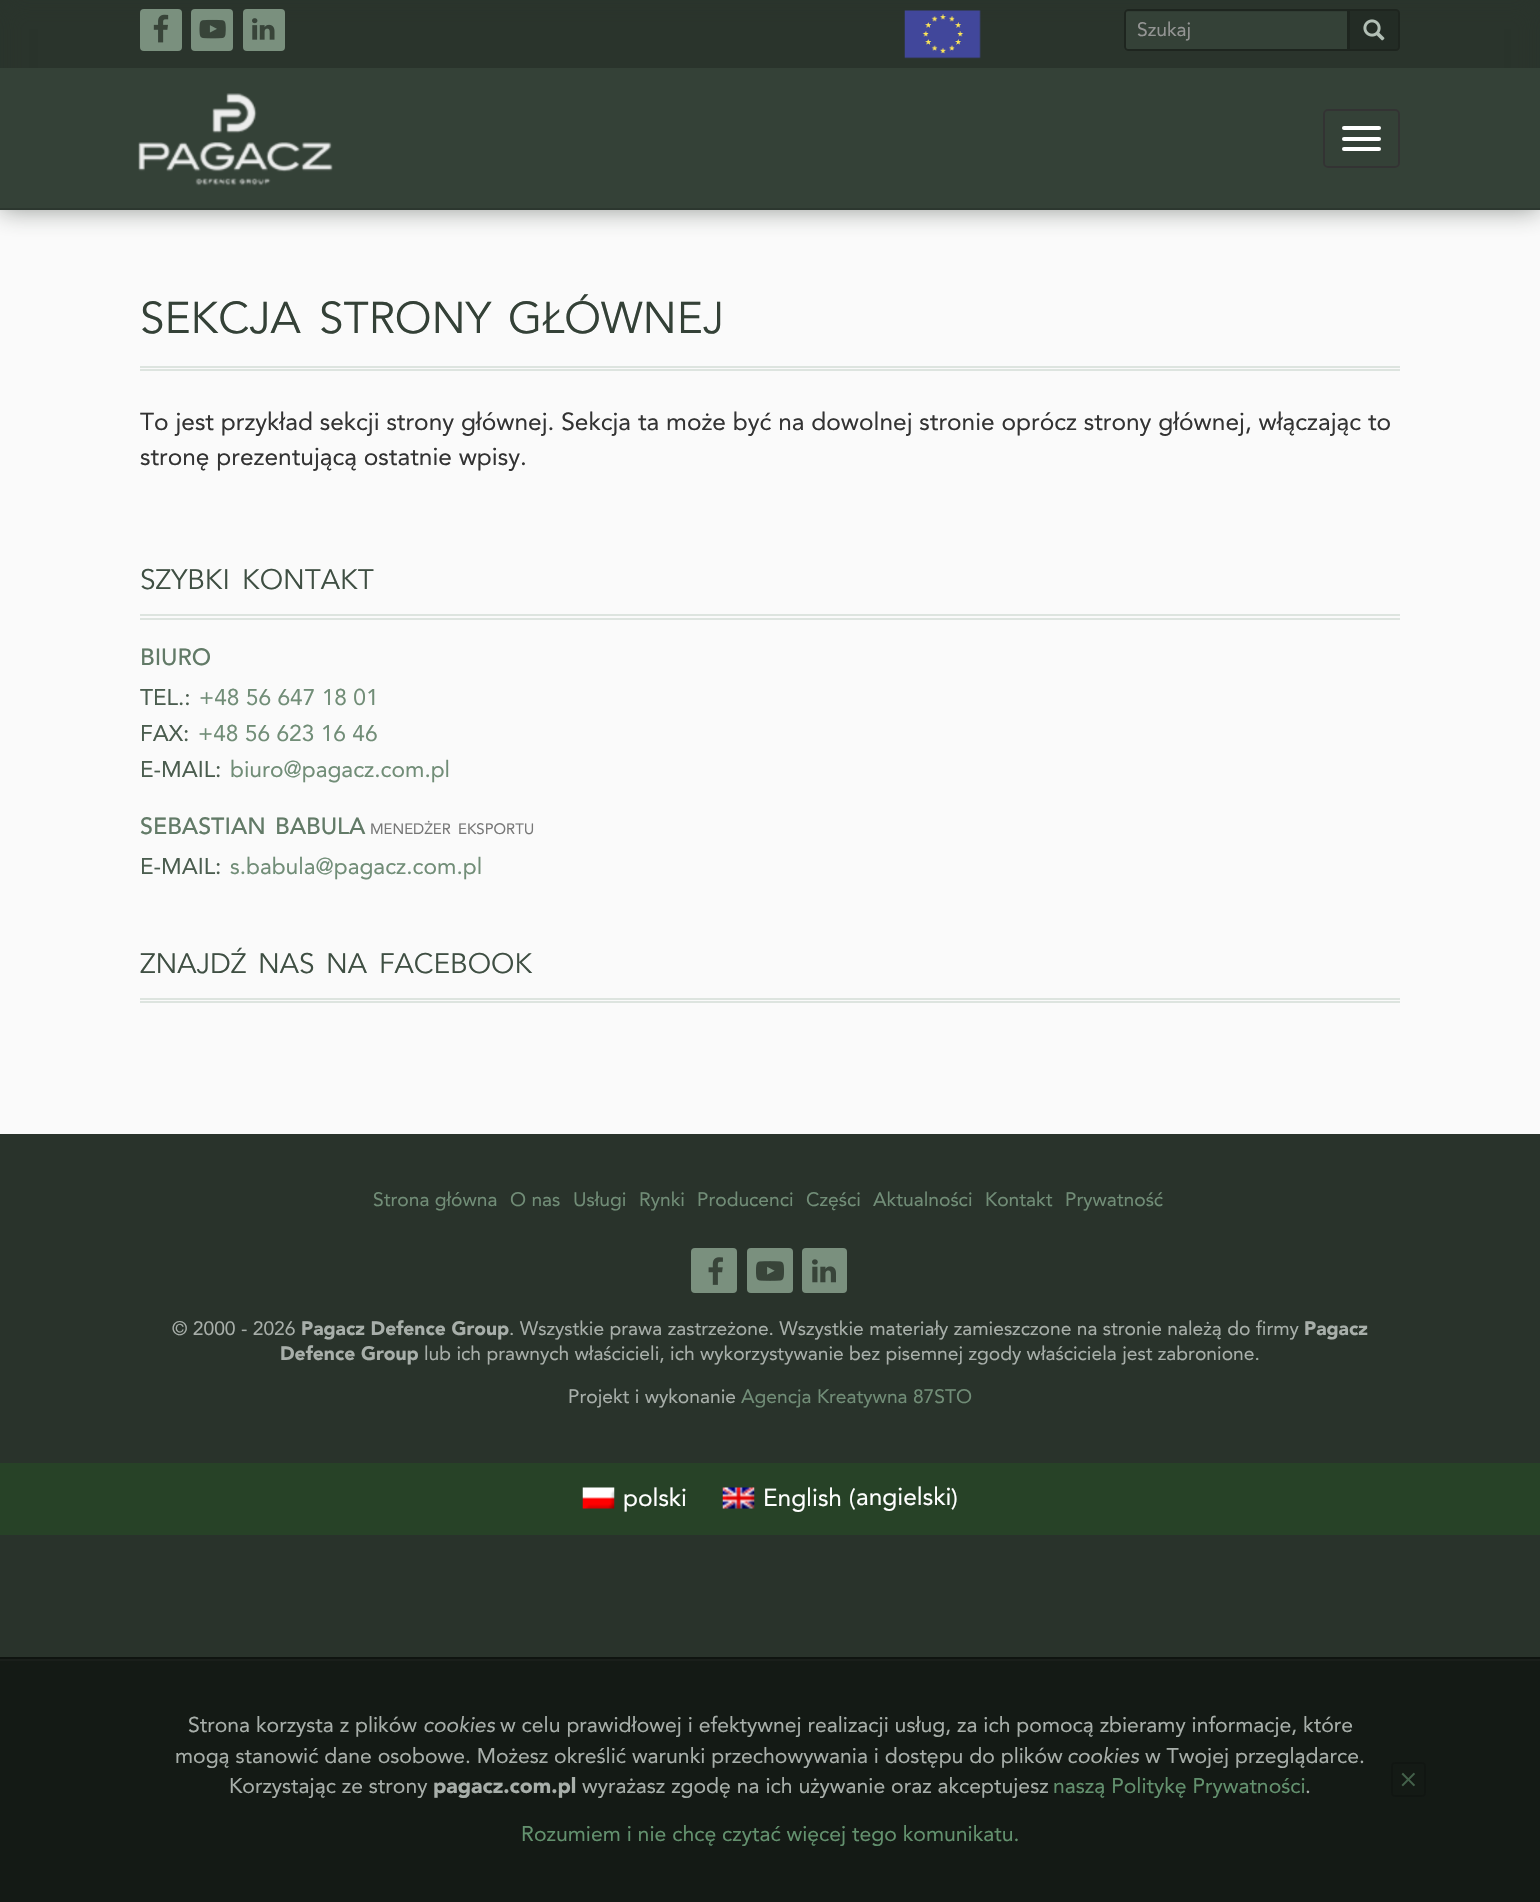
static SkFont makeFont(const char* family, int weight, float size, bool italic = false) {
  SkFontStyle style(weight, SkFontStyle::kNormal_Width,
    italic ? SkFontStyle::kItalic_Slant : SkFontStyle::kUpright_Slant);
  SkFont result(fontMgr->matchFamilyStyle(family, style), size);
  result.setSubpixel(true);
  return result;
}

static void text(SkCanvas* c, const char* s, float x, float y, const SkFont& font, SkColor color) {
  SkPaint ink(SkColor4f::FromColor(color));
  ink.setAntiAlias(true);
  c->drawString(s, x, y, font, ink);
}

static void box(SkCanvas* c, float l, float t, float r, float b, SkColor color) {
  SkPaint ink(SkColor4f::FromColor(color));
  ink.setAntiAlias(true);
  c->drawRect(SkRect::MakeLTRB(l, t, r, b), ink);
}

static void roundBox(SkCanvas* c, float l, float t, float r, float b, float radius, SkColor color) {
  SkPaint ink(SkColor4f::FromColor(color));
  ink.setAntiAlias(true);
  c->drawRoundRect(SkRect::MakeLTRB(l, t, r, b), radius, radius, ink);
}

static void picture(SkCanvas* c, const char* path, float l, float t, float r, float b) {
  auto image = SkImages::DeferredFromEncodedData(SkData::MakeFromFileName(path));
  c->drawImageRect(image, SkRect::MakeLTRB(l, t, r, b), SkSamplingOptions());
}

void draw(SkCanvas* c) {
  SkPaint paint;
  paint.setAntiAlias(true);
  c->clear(0xff29332b);
  box(c, 0, 210, 1540, 1134, 0xfffafafa);
  paint.setColor(0x8029332b);
  paint.setMaskFilter(SkMaskFilter::MakeBlur(kNormal_SkBlurStyle, 12));
  c->drawRect(SkRect::MakeLTRB(0, 0, 1540, 210), paint);
  paint.setMaskFilter(nullptr);
  box(c, 0, 68, 1540, 208, 0xff344137);
  roundBox(c, 140, 9, 182, 51, 4, 0xff7a907e);
  picture(c, "img_01.png", 153, 14, 169, 43);
  roundBox(c, 191, 9, 233, 51, 4, 0xff7a907e);
  picture(c, "img_02.png", 199, 19, 226, 39);
  roundBox(c, 243, 9, 285, 51, 4, 0xff7a907e);
  picture(c, "img_03.png", 252, 18, 275, 40);
  picture(c, "img_04.png", 904, 10, 981, 59);
  paint.setColor(0xff344137);
  c->drawPath(SkPathBuilder().moveTo(1128, 9).lineTo(1349, 9).lineTo(1349, 51).lineTo(1128, 51).cubicTo(1126, 51, 1124, 49, 1124, 47).lineTo(1124, 13).cubicTo(1124, 11, 1126, 9, 1128, 9).close().detach(), paint);
  paint.setColor(0xff303c33);
  c->drawPath(SkPathBuilder().moveTo(1127, 12).lineTo(1348, 12).lineTo(1348, 11).lineTo(1127, 11).cubicTo(1125, 11, 1125, 13, 1125, 15).cubicTo(1125, 13, 1126, 12, 1127, 12).close().detach(), paint);
  paint.setStyle(SkPaint::kStroke_Style);
  paint.setStrokeWidth(2);
  paint.setColor(0xff1e251f);
  c->drawPath(SkPathBuilder().moveTo(1128, 10).lineTo(1348, 10).lineTo(1348, 50).lineTo(1128, 50).cubicTo(1126.5f, 50, 1125, 48.5f, 1125, 47).lineTo(1125, 13).cubicTo(1125, 11.5f, 1126.5f, 10, 1128, 10).close().detach(), paint);
  SkFont face1 = makeFont("Avenir", 400, 19.25f);
  text(c, "Szukaj", 1137, 36, face1, 0xff949594);
  paint.setStyle(SkPaint::kFill_Style);
  paint.setColor(0xff232c25);
  c->drawPath(SkPathBuilder().moveTo(1349, 10).lineTo(1396, 10).cubicTo(1397.5f, 10, 1399, 11.5f, 1399, 13).lineTo(1399, 47).cubicTo(1399, 48.5f, 1397.5f, 50, 1396, 50).lineTo(1349, 50).close().detach(), paint);
  paint.setStyle(SkPaint::kStroke_Style);
  paint.setColor(0xff1e251f);
  c->drawPath(SkPathBuilder().moveTo(1349, 10).lineTo(1396, 10).cubicTo(1397.5f, 10, 1399, 11.5f, 1399, 13).lineTo(1399, 47).cubicTo(1399, 48.5f, 1397.5f, 50, 1396, 50).lineTo(1349, 50).close().detach(), paint);
  picture(c, "img_05.png", 1363, 19, 1385, 41);
  box(c, 0, 208, 1540, 210, 0xff2c372f);
  picture(c, "img_06.png", 138, 93, 333, 186);
  paint.setColor(0xff333333);
  c->drawRoundRect(SkRect::MakeLTRB(1324, 110, 1399, 167), 4, 4, paint);
  roundBox(c, 1342, 126, 1381, 130, 2, 0xffffffff);
  roundBox(c, 1342, 137, 1381, 141, 2, 0xffffffff);
  roundBox(c, 1342, 147, 1381, 151, 2, 0xffffffff);
  box(c, 140, 366, 1400, 368, 0xffdde4df);
  box(c, 140, 369, 1400, 371, 0xffdde4df);
  SkFont face2 = makeFont("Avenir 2", 400, 44);
  text(c, "SEKCJA", 140, 333, face2, 0xff344137);
  text(c, "STRONY", 319, 333, face2, 0xff344137);
  text(c, "GŁÓWNEJ", 508, 333, face2, 0xff344137);
  SkFont face3 = makeFont("Avenir", 400, 24.5f);
  text(c, "To jest przykład sekcji strony głównej. Sekcja ta może być na dowolnej stronie oprócz strony głównej, włączając to", 140, 430, face3, 0xff333333);
  text(c, "stronę prezentującą ostatnie wpisy.", 140, 465, face3, 0xff333333);
  box(c, 140, 614, 1400, 616, 0xffdde4df);
  box(c, 140, 618, 1400, 620, 0xffdde4df);
  SkFont face4 = makeFont("Avenir 2", 400, 28);
  text(c, "SZYBKI", 140, 589, face4, 0xff3f4f43);
  text(c, "KONTAKT", 242, 589, face4, 0xff3f4f43);
  SkFont face5 = makeFont("Avenir", 500, 23.25f);
  text(c, "BIURO", 140, 665, face5, 0xff627a67);
  SkFont face6 = makeFont("Avenir", 400, 22.75f);
  text(c, "TEL.:", 140, 705, face6, 0xff4b5d4f);
  text(c, "+48 56 647 18 01", 199, 705, face6, 0xff718d77);
  text(c, "FAX:", 140, 741, face6, 0xff4b5d4f);
  text(c, "+48 56 623 16 46", 198, 741, face6, 0xff718d77);
  text(c, "E-MAIL:", 140, 777, face6, 0xff4b5d4f);
  text(c, "biuro@pagacz.com.pl", 230, 777, face6, 0xff718d77);
  text(c, "SEBASTIAN", 140, 834, face5, 0xff627a67);
  text(c, "BABULA", 275, 834, face5, 0xff627a67);
  SkFont face7 = makeFont("Avenir", 400, 15);
  text(c, "MENEDŻER", 370, 834, face7, 0xff777777);
  text(c, "EKSPORTU", 458, 834, face7, 0xff777777);
  text(c, "E-MAIL:", 140, 874, face6, 0xff4b5d4f);
  text(c, "s.babula@pagacz.com.pl", 230, 874, face6, 0xff718d77);
  box(c, 140, 998, 1400, 1000, 0xffdde4df);
  box(c, 140, 1001, 1400, 1003, 0xffdde4df);
  text(c, "ZNAJDŹ", 140, 973, face4, 0xff3f4f43);
  text(c, "NAS", 258, 973, face4, 0xff3f4f43);
  text(c, "NA", 326, 973, face4, 0xff3f4f43);
  text(c, "FACEBOOK", 379, 973, face4, 0xff3f4f43);
  text(c, "Strona główna", 373, 1206, face1, 0xff718d77);
  text(c, "O nas", 510, 1206, face1, 0xff718d77);
  text(c, "Usługi", 573, 1206, face1, 0xff718d77);
  text(c, "Rynki", 639, 1206, face1, 0xff718d77);
  text(c, "Producenci", 697, 1206, face1, 0xff718d77);
  text(c, "Części", 806, 1206, face1, 0xff718d77);
  text(c, "Aktualności", 873, 1206, face1, 0xff718d77);
  text(c, "Kontakt", 985, 1206, face1, 0xff718d77);
  text(c, "Prywatność", 1065, 1206, face1, 0xff718d77);
  roundBox(c, 691, 1248, 737, 1293, 4, 0xff7a907e);
  picture(c, "img_07.png", 708, 1257, 723, 1285);
  roundBox(c, 747, 1248, 793, 1293, 4, 0xff7a907e);
  picture(c, "img_08.png", 756, 1261, 784, 1281);
  roundBox(c, 802, 1248, 847, 1293, 4, 0xff7a907e);
  picture(c, "img_09.png", 812, 1259, 836, 1283);
  text(c, "© 2000 - 2026", 172, 1335, face1, 0xffa8afaa);
  SkFont face8 = makeFont("Avenir", 900, 19.25f);
  text(c, "Pagacz Defence Group", 301, 1335, face8, 0xffa8afaa);
  text(c, ". Wszystkie prawa zastrzeżone. Wszystkie materiały zamieszczone na stronie należą do firmy", 509, 1335, face1, 0xffa8afaa);
  text(c, "Pagacz", 1304, 1335, face8, 0xffa8afaa);
  text(c, "Defence Group", 280, 1360, face8, 0xffa8afaa);
  text(c, "lub ich prawnych właścicieli, ich wykorzystywanie bez pisemnej zgody właściciela jest zabronione.", 424, 1360, face1, 0xffa8afaa);
  text(c, "Projekt i wykonanie", 568, 1403, face1, 0xffa8afaa);
  text(c, "Agencja Kreatywna 87STO", 741, 1403, face1, 0xff718d77);
  box(c, 0, 1661, 1540, 1902, 0xff141a15);
  box(c, 0, 1659, 1540, 1661, 0xff1a1f1b);
  box(c, 0, 1657, 1540, 1659, 0xff0f1410);
  SkFont face9 = makeFont("Avenir", 400, 21.2f);
  text(c, "Strona korzysta z plików", 188, 1732, face9, 0xffa8afaa);
  SkFont face10 = makeFont("Avenir", 400, 21.2f, true);
  text(c, "cookies", 423, 1732, face10, 0xffa8afaa);
  text(c, "w celu prawidłowej i efektywnej realizacji usług, za ich pomocą zbieramy informacje, które", 500, 1732, face9, 0xffa8afaa);
  text(c, "mogą stanowić dane osobowe. Możesz określić warunki przechowywania i dostępu do plików", 175, 1763, face9, 0xffa8afaa);
  text(c, "cookies", 1067, 1763, face10, 0xffa8afaa);
  text(c, "w Twojej przeglądarce.", 1145, 1763, face9, 0xffa8afaa);
  text(c, "Korzystając ze strony", 229, 1793, face9, 0xffa8afaa);
  SkFont face11 = makeFont("Avenir", 900, 21.2f);
  text(c, "pagacz.com.pl", 433, 1793, face11, 0xffa8afaa);
  text(c, "wyrażasz zgodę na ich używanie oraz akceptujesz", 582, 1793, face9, 0xffa8afaa);
  text(c, "naszą Politykę Prywatności", 1053, 1793, face9, 0xff63916e);
  text(c, ".", 1305, 1793, face9, 0xffa8afaa);
  paint.setColor(0xff111612);
  c->drawRoundRect(SkRect::MakeLTRB(1392, 1763, 1425, 1796), 3, 3, paint);
  SkFont face12 = makeFont("Avenir", 400, 28);
  text(c, "×", 1399, 1788, face12, 0xff43614a);
  text(c, "Rozumiem i nie chcę czytać więcej tego komunikatu.", 521, 1841, face9, 0xff63916e);
  box(c, 0, 1463, 1540, 1535, 0xff274227);
  picture(c, "img_10.png", 582, 1487, 615, 1509);
  text(c, "polski", 623, 1506, face3, 0xffffffff);
  picture(c, "img_11.png", 722, 1487, 755, 1509);
  text(c, "English (", 763, 1506, face3, 0xffffffff);
  text(c, "angielski", 856, 1505, face3, 0xffffffff);
  text(c, ")", 951, 1506, face3, 0xffffffff);
}
